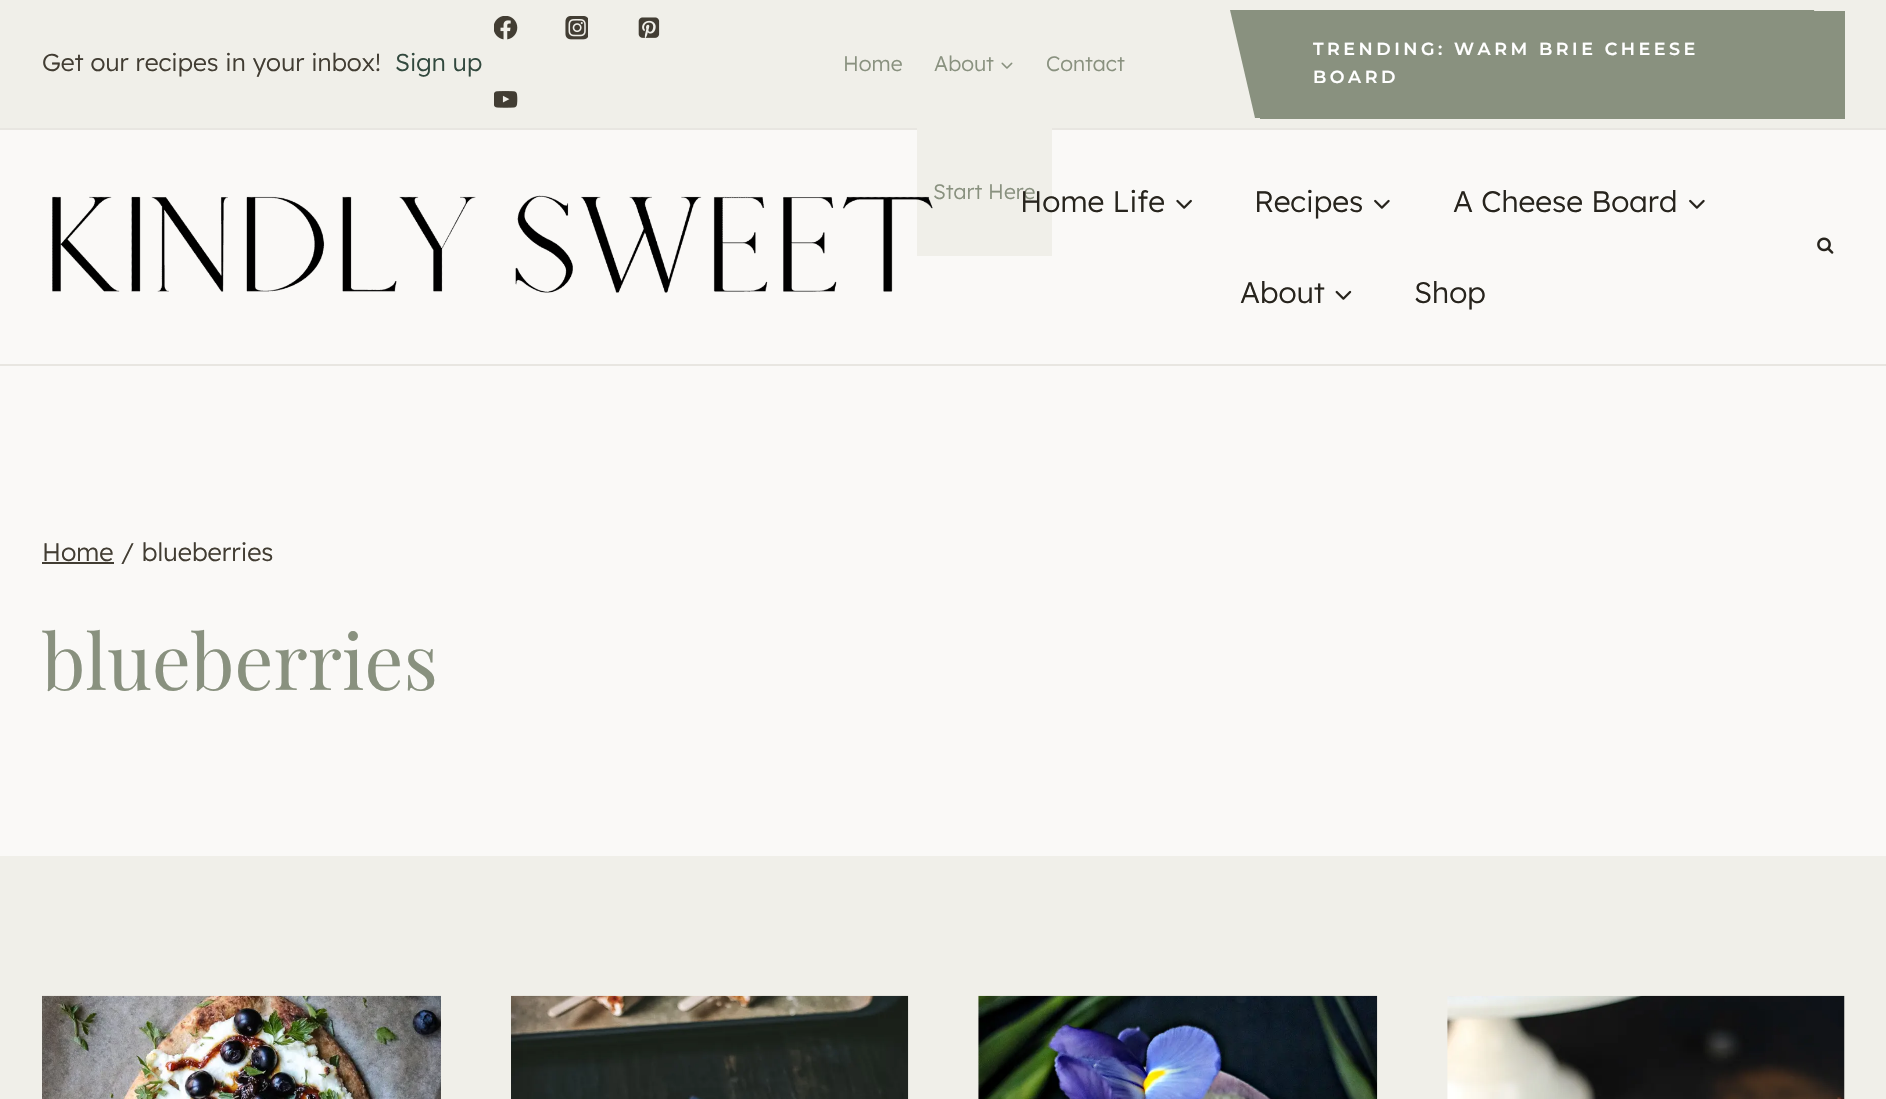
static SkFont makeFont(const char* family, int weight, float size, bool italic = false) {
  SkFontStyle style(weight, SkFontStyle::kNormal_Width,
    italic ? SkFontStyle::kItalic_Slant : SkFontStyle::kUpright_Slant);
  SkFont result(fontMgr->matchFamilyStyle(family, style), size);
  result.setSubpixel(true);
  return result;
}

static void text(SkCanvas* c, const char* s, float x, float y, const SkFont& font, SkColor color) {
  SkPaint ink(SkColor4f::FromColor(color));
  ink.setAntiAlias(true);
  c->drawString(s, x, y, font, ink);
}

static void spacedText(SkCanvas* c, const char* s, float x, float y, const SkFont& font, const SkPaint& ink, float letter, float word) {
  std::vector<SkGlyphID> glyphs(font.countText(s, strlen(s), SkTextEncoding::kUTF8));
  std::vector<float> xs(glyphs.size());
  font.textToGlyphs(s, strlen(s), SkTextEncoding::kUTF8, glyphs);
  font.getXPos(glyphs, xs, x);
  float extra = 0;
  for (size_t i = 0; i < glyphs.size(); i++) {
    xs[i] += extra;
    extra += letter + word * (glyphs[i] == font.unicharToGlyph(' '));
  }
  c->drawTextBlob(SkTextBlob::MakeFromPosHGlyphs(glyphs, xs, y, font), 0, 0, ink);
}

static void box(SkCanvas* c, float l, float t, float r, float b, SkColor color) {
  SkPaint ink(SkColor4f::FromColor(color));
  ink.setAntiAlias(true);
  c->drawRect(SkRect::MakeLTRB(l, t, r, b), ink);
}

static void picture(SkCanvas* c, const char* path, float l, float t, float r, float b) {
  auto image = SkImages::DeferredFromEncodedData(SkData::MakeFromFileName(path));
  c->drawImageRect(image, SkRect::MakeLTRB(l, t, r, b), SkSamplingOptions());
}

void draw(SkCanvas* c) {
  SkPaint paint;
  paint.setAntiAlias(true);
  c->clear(0xfff0efe9);
  box(c, 0, 128, 1886, 130, 0xffe8e6e1);
  SkFont face1 = makeFont("Lexend", 300, 24.5f);
  text(c, "Get our recipes in your inbox!", 42, 71, face1, 0xff423d33);
  text(c, "Sign up", 395, 71, face1, 0xff32493e);
  picture(c, "img_01.png", 494, 16, 518, 40);
  picture(c, "img_02.png", 565, 16, 588, 40);
  picture(c, "img_03.png", 638, 17, 660, 38);
  picture(c, "img_04.png", 494, 91, 518, 108);
  SkFont face2 = makeFont("Lexend", 300, 21);
  text(c, "Home", 843, 71, face2, 0xff89917f);
  text(c, "About", 934, 71, face2, 0xff89917f);
  picture(c, "img_05.png", 1001, 62, 1013, 69);
  text(c, "Contact", 1046, 71, face2, 0xff89917f);
  box(c, 0, 130, 1886, 364, 0xfffaf9f7);
  box(c, 917, 128, 1052, 256, 0xfff0efe9);
  text(c, "Start Here", 933, 199, face2, 0xff89917f);
  paint.setColor(0xff89917f);
  c->drawPath(SkPathBuilder().moveTo(1230, 10).lineTo(1814, 10).lineTo(1839, 118).lineTo(1255, 118).close().detach(), paint);
  box(c, 1260, 11, 1845, 119, 0xff89917f);
  SkFont face3 = makeFont("Montserrat", 100, 17.5f);
  paint.setColor(0xffffffff);
  spacedText(c, "TRENDING: WARM BRIE CHEESE", 1313, 55, face3, paint, 3.5f, 0);
  spacedText(c, "BOARD", 1313, 83, face3, paint, 3.5f, 0);
  box(c, 0, 364, 1886, 366, 0xffe8e6e1);
  picture(c, "img_06.png", 52, 195, 933, 293);
  SkFont face4 = makeFont("Lexend", 300, 29.75f);
  text(c, "Home Life", 1020, 212, face4, 0xff27241d);
  picture(c, "img_07.png", 1176, 199, 1192, 209);
  text(c, "Recipes", 1254, 212, face4, 0xff27241d);
  picture(c, "img_08.png", 1374, 199, 1390, 209);
  text(c, "A Cheese Board", 1453, 212, face4, 0xff27241d);
  picture(c, "img_08.png", 1689, 199, 1705, 209);
  text(c, "About", 1240, 303, face4, 0xff27241d);
  picture(c, "img_09.png", 1335, 290, 1352, 300);
  text(c, "Shop", 1414, 303, face4, 0xff27241d);
  picture(c, "img_10.png", 1817, 237, 1834, 254);
  box(c, 0, 366, 1886, 856, 0xfffaf9f7);
  box(c, 42, 562, 114, 564, 0xff423d33);
  SkFont face5 = makeFont("Lexend", 300, 25.25f);
  text(c, "Home / blueberries", 42, 561, face5, 0xff423d33);
  SkFont face6 = makeFont("Playfair Display", 400, 77);
  text(c, "blueberries", 42, 690, face6, 0xff89917f);
  picture(c, "img_11.png", 42, 995, 441, 1099);
  picture(c, "img_12.png", 511, 995, 909, 1099);
  picture(c, "img_13.png", 978, 995, 1378, 1099);
  picture(c, "img_14.png", 1447, 995, 1845, 1099);
}
